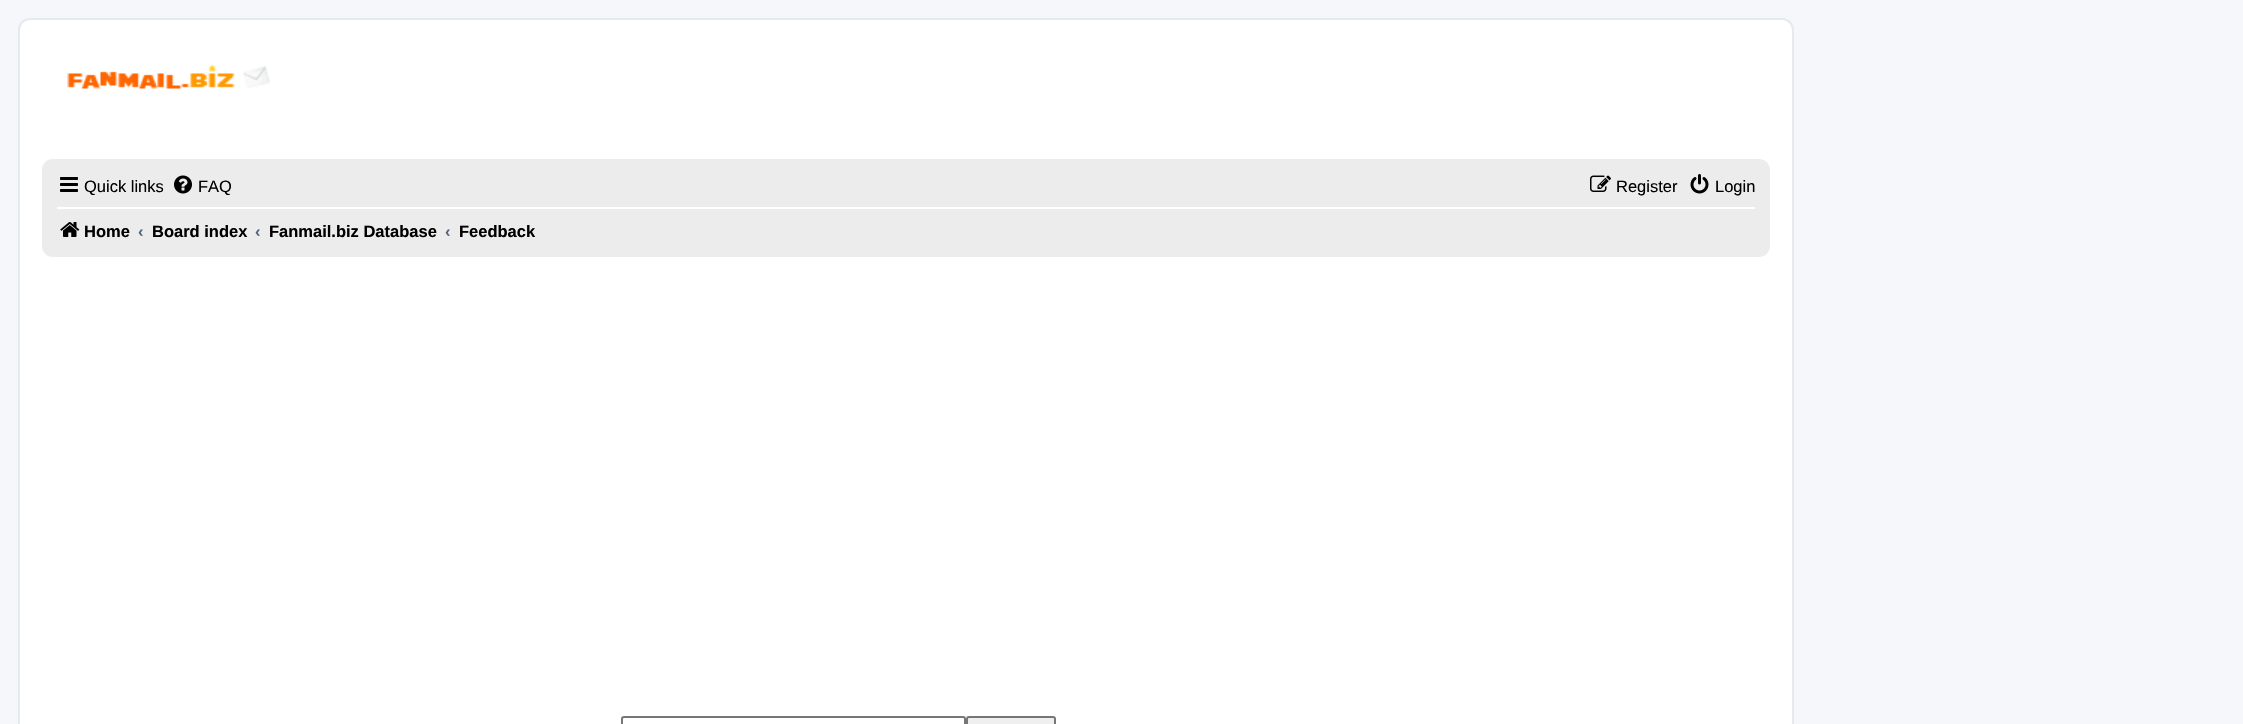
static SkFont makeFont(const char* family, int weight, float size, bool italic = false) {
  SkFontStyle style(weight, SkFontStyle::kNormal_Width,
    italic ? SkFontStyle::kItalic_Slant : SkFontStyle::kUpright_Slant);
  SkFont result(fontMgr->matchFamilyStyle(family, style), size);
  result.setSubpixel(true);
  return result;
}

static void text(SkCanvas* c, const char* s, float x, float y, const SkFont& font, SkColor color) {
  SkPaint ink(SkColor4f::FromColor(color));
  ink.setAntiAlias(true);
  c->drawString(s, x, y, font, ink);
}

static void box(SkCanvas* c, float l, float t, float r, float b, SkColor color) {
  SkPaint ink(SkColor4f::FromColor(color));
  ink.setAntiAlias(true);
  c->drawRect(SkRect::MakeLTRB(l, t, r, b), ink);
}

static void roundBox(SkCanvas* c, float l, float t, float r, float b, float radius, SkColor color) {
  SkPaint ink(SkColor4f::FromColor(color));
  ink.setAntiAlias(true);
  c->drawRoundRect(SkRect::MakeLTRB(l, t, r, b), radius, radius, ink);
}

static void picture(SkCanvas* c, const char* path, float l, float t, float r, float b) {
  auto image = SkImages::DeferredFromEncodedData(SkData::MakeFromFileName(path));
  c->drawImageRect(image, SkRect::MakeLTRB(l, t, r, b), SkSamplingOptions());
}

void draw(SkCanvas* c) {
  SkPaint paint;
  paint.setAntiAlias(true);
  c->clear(0xfff5f7fa);
  paint.setColor(0xffffffff);
  c->drawRoundRect(SkRect::MakeLTRB(19, 19, 1793, 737), 11, 11, paint);
  paint.setStyle(SkPaint::kStroke_Style);
  paint.setStrokeWidth(2);
  paint.setColor(0xffe6e9ed);
  c->drawRoundRect(SkRect::MakeLTRB(19, 19, 1793, 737), 11, 11, paint);
  picture(c, "img_01.png", 67, 64, 270, 89);
  roundBox(c, 42, 159, 1770, 257, 11, 0xffececec);
  picture(c, "img_02.png", 60, 177, 78, 192);
  SkFont face1 = makeFont("Liberation Sans", 400, 16.5f);
  text(c, "Quick links", 84, 192, face1, 0xff000000);
  picture(c, "img_03.png", 174, 175, 192, 194);
  text(c, "FAQ", 198, 192, face1, 0xff000000);
  picture(c, "img_04.png", 1590, 175, 1611, 192);
  text(c, "Register", 1616, 192, face1, 0xff000000);
  picture(c, "img_05.png", 1690, 174, 1709, 194);
  text(c, "Login", 1715, 192, face1, 0xff000000);
  box(c, 57, 207, 1755, 209, 0xffffffff);
  picture(c, "img_06.png", 60, 222, 80, 237);
  SkFont face2 = makeFont("Liberation Sans", 700, 16.5f);
  text(c, "Home", 84, 237, face2, 0xff000000);
  text(c, "‹", 138, 237, face2, 0xff536482);
  text(c, "Board index", 152, 237, face2, 0xff000000);
  text(c, "‹", 255, 237, face2, 0xff536482);
  text(c, "Fanmail.biz Database", 269, 237, face2, 0xff000000);
  text(c, "‹", 445, 237, face2, 0xff536482);
  text(c, "Feedback", 459, 237, face2, 0xff000000);
  paint.setColor(0xff767676);
  c->drawRoundRect(SkRect::MakeLTRB(622, 717, 965, 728), 2, 2, paint);
  paint.setStyle(SkPaint::kFill_Style);
  paint.setColor(0xffefefef);
  c->drawRoundRect(SkRect::MakeLTRB(967, 717, 1055, 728), 2, 2, paint);
  paint.setStyle(SkPaint::kStroke_Style);
  paint.setColor(0xff767676);
  c->drawRoundRect(SkRect::MakeLTRB(967, 717, 1055, 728), 2, 2, paint);
}
